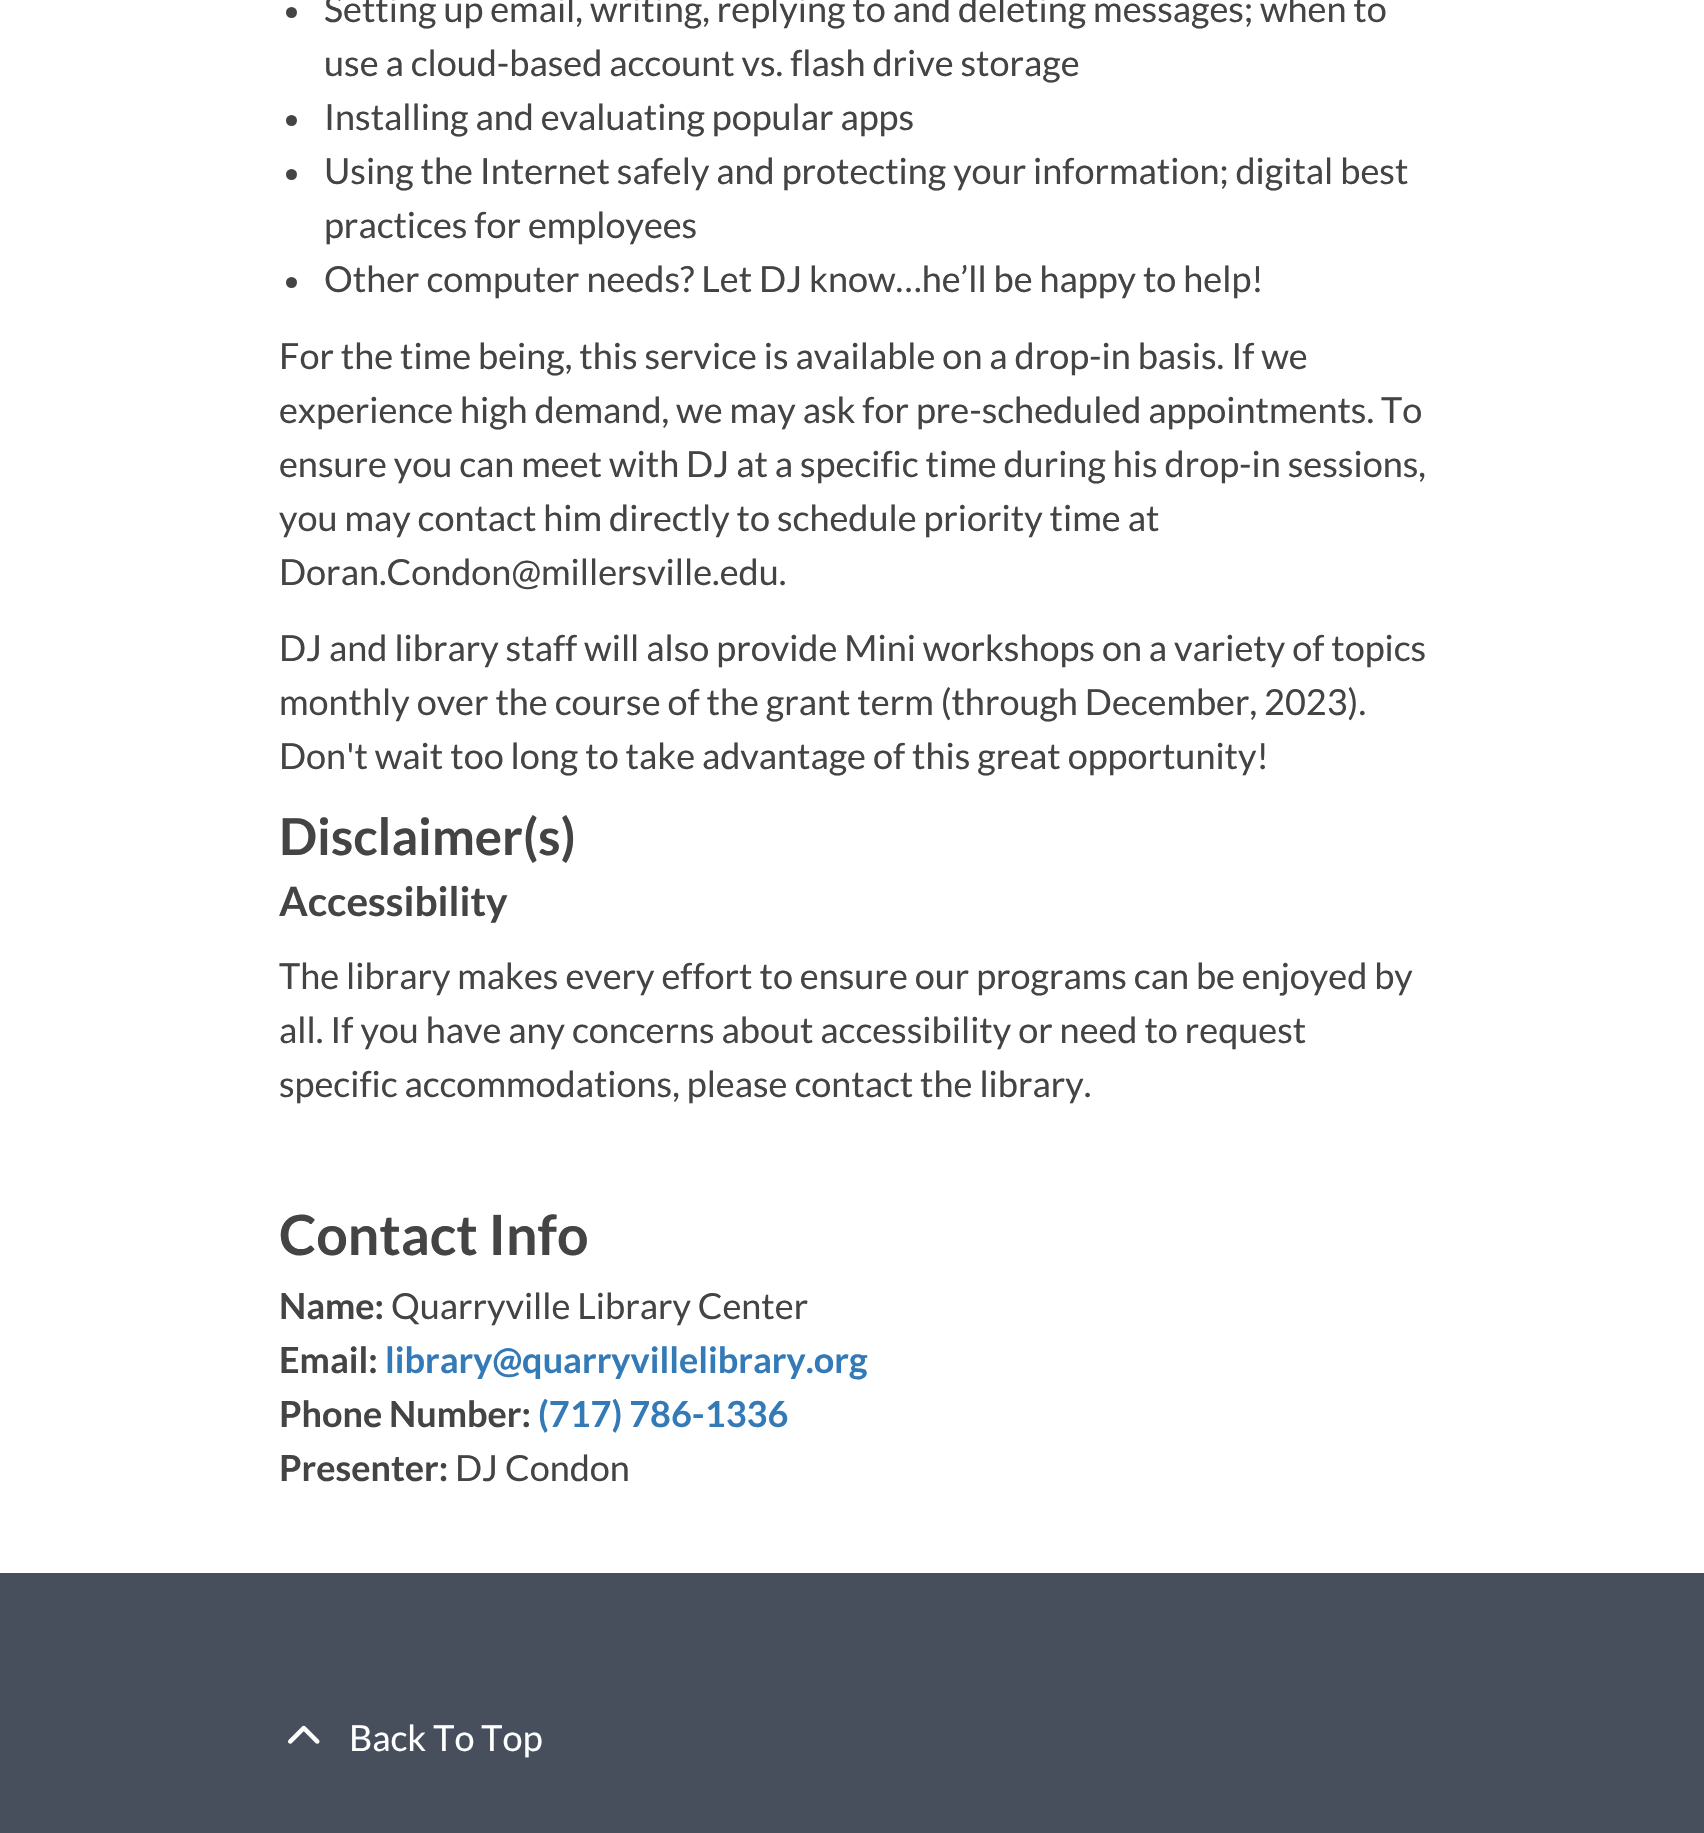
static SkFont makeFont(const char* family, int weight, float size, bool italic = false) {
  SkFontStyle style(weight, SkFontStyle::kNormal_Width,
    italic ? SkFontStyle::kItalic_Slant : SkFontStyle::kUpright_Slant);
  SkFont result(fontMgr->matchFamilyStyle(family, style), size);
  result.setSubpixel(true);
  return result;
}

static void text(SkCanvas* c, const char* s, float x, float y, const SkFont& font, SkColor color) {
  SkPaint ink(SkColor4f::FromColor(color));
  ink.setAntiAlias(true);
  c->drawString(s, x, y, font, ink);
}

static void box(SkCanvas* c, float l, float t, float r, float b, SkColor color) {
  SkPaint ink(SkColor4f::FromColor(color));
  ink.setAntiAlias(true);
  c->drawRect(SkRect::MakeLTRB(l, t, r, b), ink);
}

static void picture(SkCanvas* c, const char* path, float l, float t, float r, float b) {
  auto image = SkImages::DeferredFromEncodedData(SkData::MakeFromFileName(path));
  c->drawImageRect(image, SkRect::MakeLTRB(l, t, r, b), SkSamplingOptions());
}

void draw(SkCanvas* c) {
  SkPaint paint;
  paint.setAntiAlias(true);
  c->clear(0xffffffff);
  paint.setColor(0xff444444);
  c->drawCircle(291.5f, 12.5f, 5.5f, paint);
  SkFont face1 = makeFont("Lato", 400, 36);
  text(c, "Setting up email, writing, replying to and deleting messages; when to", 324, 22, face1, 0xff444444);
  text(c, "use a cloud-based account vs. flash drive storage", 324, 76, face1, 0xff444444);
  c->drawCircle(291.5f, 120.5f, 5.5f, paint);
  text(c, "Installing and evaluating popular apps", 324, 130, face1, 0xff444444);
  c->drawCircle(291.5f, 174.5f, 5.5f, paint);
  text(c, "Using the Internet safely and protecting your information; digital best", 324, 184, face1, 0xff444444);
  text(c, "practices for employees", 324, 238, face1, 0xff444444);
  c->drawCircle(291.5f, 282.5f, 5.5f, paint);
  text(c, "Other computer needs? Let DJ know…he’ll be happy to help!", 324, 292, face1, 0xff444444);
  text(c, "For the time being, this service is available on a drop-in basis. If we", 279, 369, face1, 0xff444444);
  text(c, "experience high demand, we may ask for pre-scheduled appointments. To", 279, 423, face1, 0xff444444);
  text(c, "ensure you can meet with DJ at a specific time during his drop-in sessions,", 279, 477, face1, 0xff444444);
  text(c, "you may contact him directly to schedule priority time at", 279, 531, face1, 0xff444444);
  text(c, "Doran.Condon@millersville.edu.", 279, 585, face1, 0xff444444);
  text(c, "DJ and library staff will also provide Mini workshops on a variety of topics", 279, 661, face1, 0xff444444);
  text(c, "monthly over the course of the grant term (through December, 2023).", 279, 715, face1, 0xff444444);
  text(c, "Don't wait too long to take advantage of this great opportunity!", 279, 769, face1, 0xff444444);
  SkFont face2 = makeFont("Lato", 700, 51);
  text(c, "Disclaimer(s)", 279, 855, face2, 0xff444444);
  SkFont face3 = makeFont("Lato", 700, 40.5f);
  text(c, "Accessibility", 279, 916, face3, 0xff444444);
  text(c, "The library makes every effort to ensure our programs can be enjoyed by", 279, 989, face1, 0xff444444);
  text(c, "all. If you have any concerns about accessibility or need to request", 279, 1043, face1, 0xff444444);
  text(c, "specific accommodations, please contact the library.", 279, 1097, face1, 0xff444444);
  SkFont face4 = makeFont("Lato", 700, 55.5f);
  text(c, "Contact Info", 279, 1255, face4, 0xff444444);
  SkFont face5 = makeFont("Lato", 700, 36);
  text(c, "Name:", 279, 1319, face5, 0xff444444);
  text(c, "Quarryville Library Center", 391, 1319, face1, 0xff444444);
  text(c, "Email:", 279, 1373, face5, 0xff444444);
  text(c, "library@quarryvillelibrary.org", 385, 1373, face5, 0xff337ab7);
  text(c, "Phone Number:", 279, 1427, face5, 0xff444444);
  text(c, "(717) 786-1336", 538, 1427, face5, 0xff337ab7);
  text(c, "Presenter:", 279, 1481, face5, 0xff444444);
  text(c, "DJ Condon", 455, 1481, face1, 0xff444444);
  box(c, 0, 1573, 1704, 1833, 0xff474e5c);
  picture(c, "img_01.png", 288, 1725, 320, 1744);
  text(c, "Back To Top", 349, 1751, face1, 0xffffffff);
}
